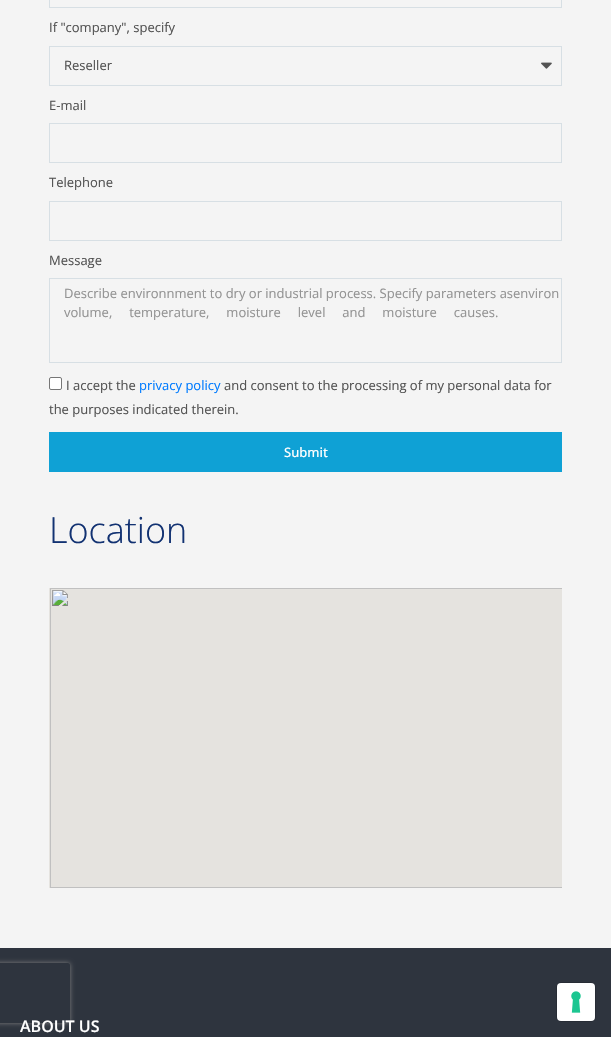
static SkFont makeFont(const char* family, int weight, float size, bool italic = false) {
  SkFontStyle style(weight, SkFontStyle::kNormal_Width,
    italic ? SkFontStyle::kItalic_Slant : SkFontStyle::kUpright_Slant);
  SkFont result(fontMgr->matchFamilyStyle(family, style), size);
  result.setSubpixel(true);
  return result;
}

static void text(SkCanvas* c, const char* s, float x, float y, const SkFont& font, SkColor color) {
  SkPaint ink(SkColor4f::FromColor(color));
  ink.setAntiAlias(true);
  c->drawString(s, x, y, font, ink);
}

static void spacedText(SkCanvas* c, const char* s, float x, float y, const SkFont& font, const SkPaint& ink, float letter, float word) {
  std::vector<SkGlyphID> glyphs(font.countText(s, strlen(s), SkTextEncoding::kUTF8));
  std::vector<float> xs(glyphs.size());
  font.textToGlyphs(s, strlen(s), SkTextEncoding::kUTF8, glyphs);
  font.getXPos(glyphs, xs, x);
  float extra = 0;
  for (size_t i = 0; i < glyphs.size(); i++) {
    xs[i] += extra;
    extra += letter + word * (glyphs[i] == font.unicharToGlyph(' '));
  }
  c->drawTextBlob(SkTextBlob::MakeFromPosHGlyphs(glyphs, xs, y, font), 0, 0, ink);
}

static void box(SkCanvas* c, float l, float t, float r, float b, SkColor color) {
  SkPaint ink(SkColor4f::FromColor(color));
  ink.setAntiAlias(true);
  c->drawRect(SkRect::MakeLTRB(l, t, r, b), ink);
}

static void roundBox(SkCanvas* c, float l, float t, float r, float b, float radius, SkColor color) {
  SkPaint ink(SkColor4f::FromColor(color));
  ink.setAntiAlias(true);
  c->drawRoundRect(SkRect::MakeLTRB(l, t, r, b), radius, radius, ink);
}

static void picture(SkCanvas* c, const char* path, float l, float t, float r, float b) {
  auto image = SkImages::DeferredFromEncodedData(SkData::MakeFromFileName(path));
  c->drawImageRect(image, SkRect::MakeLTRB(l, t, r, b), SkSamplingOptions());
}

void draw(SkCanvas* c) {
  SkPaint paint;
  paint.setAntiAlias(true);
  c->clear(0xfff4f4f4);
  paint.setStyle(SkPaint::kStroke_Style);
  paint.setStrokeWidth(1);
  paint.setColor(0xffd7dfe4);
  c->drawRect(SkRect::MakeLTRB(49.5f, -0.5f, 561.5f, 7.5f), paint);
  SkFont face1 = makeFont("Open Sans", 400, 13);
  text(c, "If \"company\", specify", 49, 32, face1, 0xff535353);
  c->drawRect(SkRect::MakeLTRB(49.5f, 46.5f, 561.5f, 85.5f), paint);
  text(c, "Reseller", 64, 70, face1, 0xff535353);
  picture(c, "img_01.png", 541, 62, 552, 69);
  text(c, "E-mail", 49, 110, face1, 0xff535353);
  c->drawRect(SkRect::MakeLTRB(49.5f, 123.5f, 561.5f, 162.5f), paint);
  text(c, "Telephone", 49, 187, face1, 0xff535353);
  c->drawRect(SkRect::MakeLTRB(49.5f, 201.5f, 561.5f, 240.5f), paint);
  text(c, "Message", 49, 265, face1, 0xff535353);
  c->drawRect(SkRect::MakeLTRB(49.5f, 278.5f, 561.5f, 362.5f), paint);
  text(c, "Describe environnment to dry or industrial process. Specify parameters asenviron", 64, 298, face1, 0xff939393);
  paint.setStyle(SkPaint::kFill_Style);
  paint.setColor(0xff939393);
  spacedText(c, "volume, temperature, moisture level and moisture causes.", 64, 317, face1, paint, 0, 13.5f);
  paint.setColor(0xffffffff);
  c->drawRoundRect(SkRect::MakeLTRB(49.5f, 377.5f, 61.5f, 389.5f), 1.5f, 1.5f, paint);
  paint.setStyle(SkPaint::kStroke_Style);
  paint.setColor(0xff767676);
  c->drawRoundRect(SkRect::MakeLTRB(49.5f, 377.5f, 61.5f, 389.5f), 1.5f, 1.5f, paint);
  text(c, "I accept the", 66, 390, face1, 0xff535353);
  text(c, "privacy policy", 139, 390, face1, 0xff007bff);
  text(c, "and consent to the processing of my personal data for", 224, 390, face1, 0xff535353);
  text(c, "the purposes indicated therein.", 49, 414, face1, 0xff535353);
  box(c, 49, 432, 562, 472, 0xff0fa1d5);
  SkFont face2 = makeFont("Open Sans", 500, 13);
  text(c, "Submit", 284, 457, face2, 0xffffffff);
  box(c, 0, 948, 611, 1037, 0xff2e343e);
  c->save();
  c->clipPath(SkPathBuilder(SkPathFillType::kEvenOdd).moveTo(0, 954).lineTo(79, 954).lineTo(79, 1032).lineTo(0, 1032).close().moveTo(-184, 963).lineTo(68, 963).cubicTo(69, 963, 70, 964, 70, 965).lineTo(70, 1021).cubicTo(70, 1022, 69, 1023, 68, 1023).lineTo(-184, 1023).cubicTo(-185, 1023, -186, 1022, -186, 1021).lineTo(-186, 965).cubicTo(-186, 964, -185, 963, -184, 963).close().detach(), true);
  paint.setStyle(SkPaint::kFill_Style);
  paint.setColor(0xff808080);
  paint.setMaskFilter(SkMaskFilter::MakeBlur(kNormal_SkBlurStyle, 2.5f));
  c->drawRoundRect(SkRect::MakeLTRB(-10, 963, 70, 1023), 2, 2, paint);
  paint.setMaskFilter(nullptr);
  c->restore();
  SkFont face3 = makeFont("Open Sans", 300, 36);
  text(c, "Location", 49, 543, face3, 0xff123272);
  picture(c, "img_02.png", 49, 588, 562, 888);
  paint.setStyle(SkPaint::kStroke_Style);
  paint.setColor(0xff272c35);
  c->drawRoundRect(SkRect::MakeLTRB(556.5f, 982.5f, 595.5f, 1021.5f), 4.5f, 4.5f, paint);
  roundBox(c, 557, 983, 595, 1021, 4, 0xffffffff);
  picture(c, "img_03.png", 571, 991, 581, 1013);
  SkFont face4 = makeFont("Open Sans", 600, 16);
  text(c, "ABOUT US", 20, 1032, face4, 0xffffffff);
}
